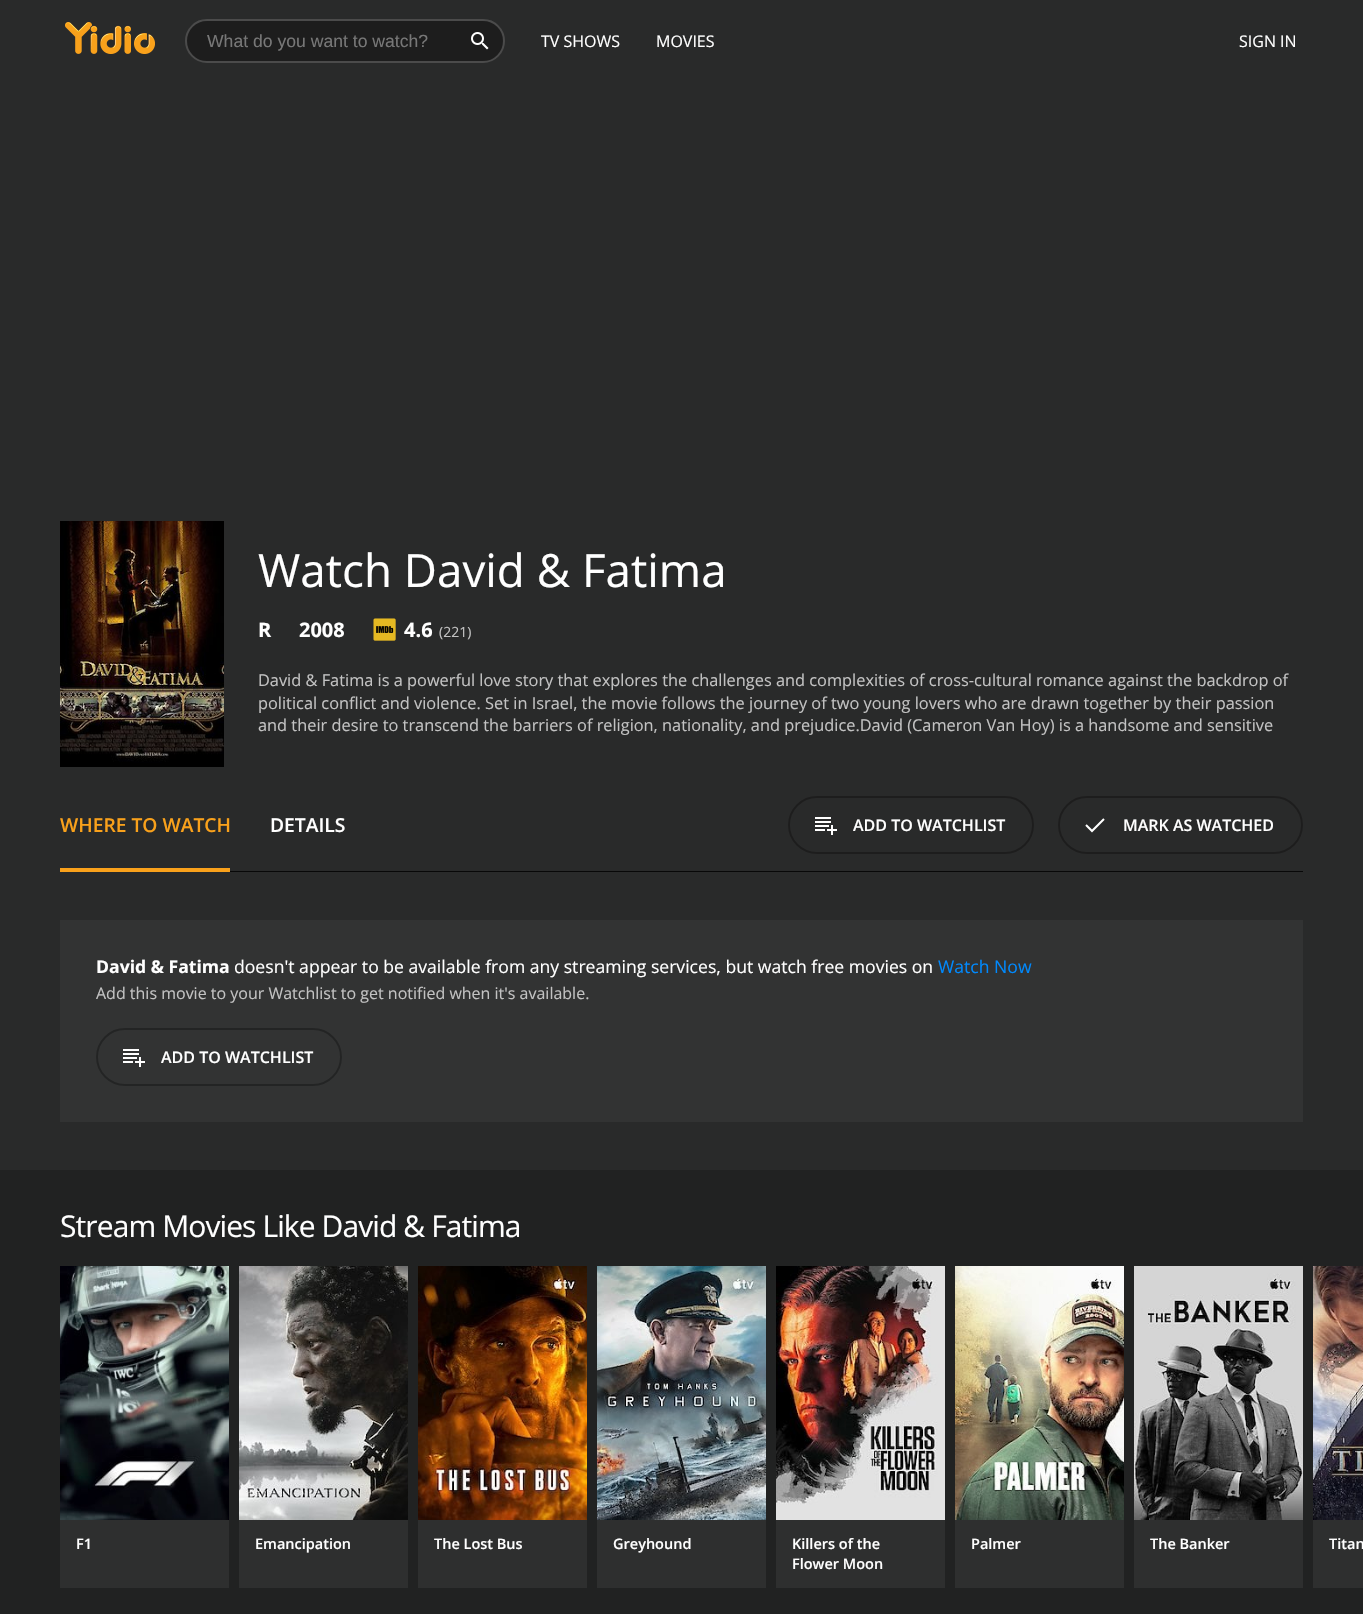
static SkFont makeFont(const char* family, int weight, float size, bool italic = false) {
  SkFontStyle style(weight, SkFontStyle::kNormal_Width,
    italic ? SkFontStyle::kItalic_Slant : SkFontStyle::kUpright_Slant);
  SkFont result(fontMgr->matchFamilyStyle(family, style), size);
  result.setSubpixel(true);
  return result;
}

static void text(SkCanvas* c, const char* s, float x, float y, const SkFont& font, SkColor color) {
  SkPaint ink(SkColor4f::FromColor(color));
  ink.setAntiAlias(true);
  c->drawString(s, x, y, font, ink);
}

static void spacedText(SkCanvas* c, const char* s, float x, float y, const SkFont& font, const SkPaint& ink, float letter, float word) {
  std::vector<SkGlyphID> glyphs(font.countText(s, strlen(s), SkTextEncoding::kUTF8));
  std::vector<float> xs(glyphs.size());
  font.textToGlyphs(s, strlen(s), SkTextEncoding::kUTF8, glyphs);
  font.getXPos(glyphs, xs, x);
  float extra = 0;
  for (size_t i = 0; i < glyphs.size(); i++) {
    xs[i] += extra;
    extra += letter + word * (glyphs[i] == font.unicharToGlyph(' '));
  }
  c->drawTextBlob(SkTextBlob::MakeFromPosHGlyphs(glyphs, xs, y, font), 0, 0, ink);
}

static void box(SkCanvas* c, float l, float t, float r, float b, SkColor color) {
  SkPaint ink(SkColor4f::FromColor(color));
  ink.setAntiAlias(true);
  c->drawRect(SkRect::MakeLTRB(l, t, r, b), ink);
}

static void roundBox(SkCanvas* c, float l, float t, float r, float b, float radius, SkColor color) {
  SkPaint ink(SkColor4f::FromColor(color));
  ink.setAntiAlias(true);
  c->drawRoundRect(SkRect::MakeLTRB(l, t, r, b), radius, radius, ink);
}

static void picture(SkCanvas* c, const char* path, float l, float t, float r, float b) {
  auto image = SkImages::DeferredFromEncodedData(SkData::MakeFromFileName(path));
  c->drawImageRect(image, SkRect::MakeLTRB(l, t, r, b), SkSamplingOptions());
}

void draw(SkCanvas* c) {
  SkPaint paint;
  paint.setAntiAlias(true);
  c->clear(0xff292a2a);
  picture(c, "img_01.png", 65, 22, 155, 54);
  roundBox(c, 185, 19, 505, 63, 22, 0xff1d1d1d);
  paint.setStyle(SkPaint::kStroke_Style);
  paint.setStrokeWidth(2);
  paint.setColor(0x33ffffff);
  c->drawRoundRect(SkRect::MakeLTRB(186, 20, 504, 62), 21, 21, paint);
  SkFont face1 = makeFont("Liberation Sans", 400, 17.6f);
  text(c, "What do you want to watch?", 207, 47, face1, 0xff777777);
  picture(c, "img_02.png", 471, 32, 489, 50);
  SkFont face2 = makeFont("Open Sans", 400, 16);
  text(c, "TV SHOWS", 541, 47, face2, 0xffffffff);
  text(c, "MOVIES", 656, 47, face2, 0xffffffff);
  text(c, "SIGN IN", 1239, 47, face2, 0xffffffff);
  picture(c, "img_03.png", 60, 521, 224, 767);
  SkFont face3 = makeFont("Open Sans", 400, 45.75f);
  text(c, "Watch David & Fatima", 258, 587, face3, 0xffffffff);
  SkFont face4 = makeFont("Open Sans", 700, 20);
  text(c, "R", 258, 637, face4, 0xffffffff);
  text(c, "2008", 299, 637, face4, 0xffffffff);
  picture(c, "img_04.png", 373, 618, 396, 641);
  text(c, "4.6", 404, 637, face4, 0xffffffff);
  SkFont face5 = makeFont("Open Sans", 400, 14);
  text(c, "(221)", 439, 637, face5, 0xffc2c2c2);
  SkFont face6 = makeFont("Open Sans", 400, 16.35f);
  text(c, "David & Fatima is a powerful love story that explores the challenges and complexities of cross-cultural romance against the backdrop of", 258, 686, face6, 0xffc2c2c2);
  text(c, "political conflict and violence. Set in Israel, the movie follows the journey of two young lovers who are drawn together by their passion", 258, 709, face6, 0xffc2c2c2);
  text(c, "and their desire to transcend the barriers of religion, nationality, and prejudice.David (Cameron Van Hoy) is a handsome and sensitive", 258, 731, face6, 0xffc2c2c2);
  box(c, 230, 871, 1303, 872, 0xff080808);
  box(c, 60, 868, 230, 872, 0xfff9a11b);
  SkFont face7 = makeFont("Open Sans", 600, 19.25f);
  text(c, "WHERE TO WATCH", 60, 832, face7, 0xfff9a11b);
  text(c, "DETAILS", 270, 832, face7, 0xffffffff);
  paint.setColor(0xff1d1d1d);
  c->drawRoundRect(SkRect::MakeLTRB(789, 797, 1033, 853), 28, 28, paint);
  picture(c, "img_05.png", 815, 817, 837, 835);
  SkFont face8 = makeFont("Open Sans", 600, 16);
  text(c, "ADD TO WATCHLIST", 853, 831, face8, 0xffffffff);
  c->drawRoundRect(SkRect::MakeLTRB(1059, 797, 1302, 853), 28, 28, paint);
  picture(c, "img_06.png", 1085, 818, 1105, 833);
  text(c, "MARK AS WATCHED", 1123, 831, face8, 0xffffffff);
  box(c, 60, 920, 1303, 1122, 0xff323333);
  SkFont face9 = makeFont("Open Sans", 700, 17.6f);
  text(c, "David & Fatima", 96, 973, face9, 0xffffffff);
  SkFont face10 = makeFont("Open Sans", 400, 17.6f);
  text(c, "doesn't appear to be available from any streaming services, but watch free movies on", 234, 973, face10, 0xffffffff);
  text(c, "Watch Now", 938, 973, face10, 0xff0089fd);
  text(c, "Add this movie to your Watchlist to get notified when it's available.", 96, 999, face2, 0xffc2c2c2);
  paint.setColor(0xff232424);
  c->drawRoundRect(SkRect::MakeLTRB(97, 1029, 341, 1085), 28, 28, paint);
  picture(c, "img_07.png", 123, 1049, 145, 1067);
  text(c, "ADD TO WATCHLIST", 161, 1063, face8, 0xffffffff);
  box(c, 0, 1170, 1363, 1614, 0xff212222);
  SkFont face11 = makeFont("Open Sans", 400, 30);
  paint.setStyle(SkPaint::kFill_Style);
  paint.setColor(0xffffffff);
  spacedText(c, "Stream Movies Like David & Fatima", 60, 1237, face11, paint, -0.9f, 0);
  picture(c, "img_08.png", 60, 1266, 229, 1520);
  box(c, 60, 1520, 229, 1588, 0xff2e2f2f);
  SkFont face12 = makeFont("Open Sans", 600, 14.5f);
  text(c, "F1", 76, 1549, face12, 0xffffffff);
  picture(c, "img_09.png", 239, 1266, 408, 1520);
  box(c, 239, 1520, 408, 1588, 0xff2e2f2f);
  text(c, "Emancipation", 255, 1549, face12, 0xffffffff);
  picture(c, "img_10.png", 418, 1266, 587, 1520);
  box(c, 418, 1520, 587, 1588, 0xff2e2f2f);
  text(c, "The Lost Bus", 434, 1549, face12, 0xffffffff);
  picture(c, "img_11.png", 597, 1266, 766, 1520);
  box(c, 597, 1520, 766, 1588, 0xff2e2f2f);
  text(c, "Greyhound", 613, 1549, face12, 0xffffffff);
  picture(c, "img_12.png", 776, 1266, 945, 1520);
  box(c, 776, 1520, 945, 1588, 0xff2e2f2f);
  text(c, "Killers of the", 792, 1549, face12, 0xffffffff);
  text(c, "Flower Moon", 792, 1569, face12, 0xffffffff);
  picture(c, "img_13.png", 955, 1266, 1124, 1520);
  box(c, 955, 1520, 1124, 1588, 0xff2e2f2f);
  text(c, "Palmer", 971, 1549, face12, 0xffffffff);
  picture(c, "img_14.png", 1134, 1266, 1303, 1520);
  box(c, 1134, 1520, 1303, 1588, 0xff2e2f2f);
  text(c, "The Banker", 1150, 1549, face12, 0xffffffff);
  picture(c, "img_15.png", 1313, 1266, 1363, 1520);
  box(c, 1313, 1520, 1363, 1588, 0xff2e2f2f);
  text(c, "Titan", 1329, 1549, face12, 0xffffffff);
}
